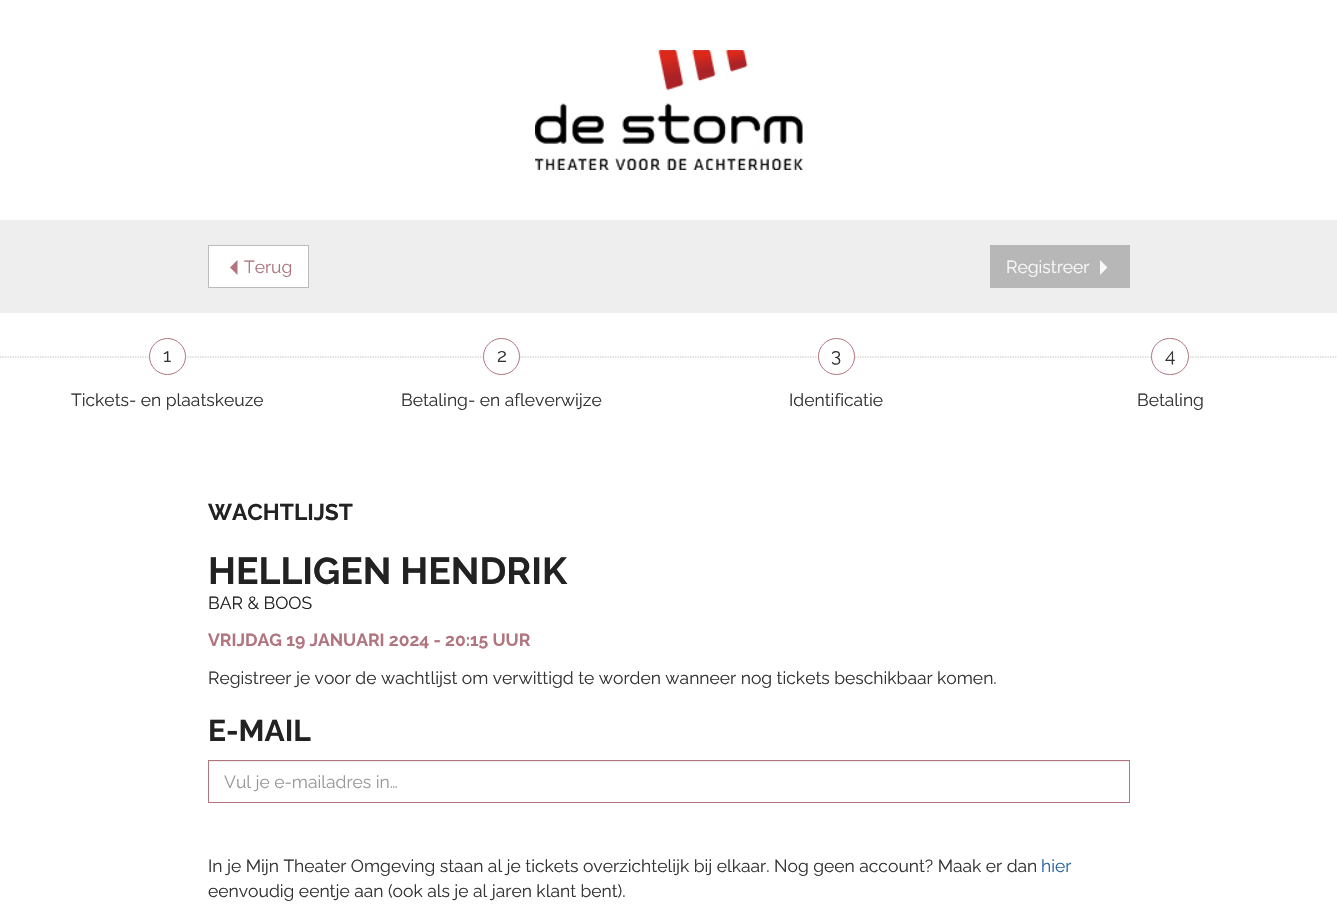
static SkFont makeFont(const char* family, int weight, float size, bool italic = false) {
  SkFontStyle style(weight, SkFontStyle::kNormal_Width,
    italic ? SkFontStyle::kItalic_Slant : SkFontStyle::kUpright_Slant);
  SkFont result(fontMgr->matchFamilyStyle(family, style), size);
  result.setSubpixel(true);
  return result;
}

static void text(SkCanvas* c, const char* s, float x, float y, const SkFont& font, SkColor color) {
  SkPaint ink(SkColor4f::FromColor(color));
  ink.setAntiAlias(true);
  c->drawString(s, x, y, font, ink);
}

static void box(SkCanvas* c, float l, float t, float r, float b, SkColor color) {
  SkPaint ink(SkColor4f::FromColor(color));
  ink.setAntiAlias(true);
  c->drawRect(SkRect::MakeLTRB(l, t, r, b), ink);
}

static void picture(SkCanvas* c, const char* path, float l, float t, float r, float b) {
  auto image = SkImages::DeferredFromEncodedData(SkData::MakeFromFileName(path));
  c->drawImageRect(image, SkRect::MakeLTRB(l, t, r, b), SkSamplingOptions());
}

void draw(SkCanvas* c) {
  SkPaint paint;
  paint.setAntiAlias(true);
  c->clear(0xffffffff);
  picture(c, "img_01.png", 535, 50, 803, 170);
  box(c, 0, 220, 1337, 313, 0xffeeeeee);
  paint.setColor(0xffffffff);
  c->drawRect(SkRect::MakeLTRB(208.5f, 245.5f, 308.5f, 287.5f), paint);
  paint.setStyle(SkPaint::kStroke_Style);
  paint.setStrokeWidth(1);
  paint.setColor(0xffbbbbbb);
  c->drawRect(SkRect::MakeLTRB(208.5f, 245.5f, 308.5f, 287.5f), paint);
  paint.setStyle(SkPaint::kFill_Style);
  paint.setColor(0xffb0757e);
  c->drawPath(SkPathBuilder().moveTo(237.5f, 260).lineTo(237.5f, 275).lineTo(230, 267.5f).close().detach(), paint);
  SkFont face1 = makeFont("Raleway", 400, 17.5f);
  text(c, "Terug", 244, 273, face1, 0xffb0757e);
  box(c, 990, 245, 1130, 288, 0xffb7b7b7);
  text(c, "Registreer", 1006, 273, face1, 0xfff9f9f9);
  paint.setColor(0xfff9f9f9);
  c->drawPath(SkPathBuilder().moveTo(1100, 275).lineTo(1100, 260).lineTo(1107.5f, 267.5f).close().detach(), paint);
  paint.setStyle(SkPaint::kStroke_Style);
  paint.setStrokeWidth(1.2f);
  paint.setColor(0xffbbbbbb);
  paint.setPathEffect(SkDashPathEffect::Make({{1.25f, 1.25f}}, 0));
  c->drawPath(SkPathBuilder().moveTo(0, 357).lineTo(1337.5f, 357).detach(), paint);
  paint.setPathEffect(nullptr);
  paint.setStyle(SkPaint::kFill_Style);
  paint.setColor(0xffffffff);
  c->drawCircle(167.5f, 356.5f, 18, paint);
  paint.setStyle(SkPaint::kStroke_Style);
  paint.setStrokeWidth(1);
  paint.setColor(0xffb0757e);
  c->drawCircle(167.5f, 356.5f, 18, paint);
  SkFont face2 = makeFont("Raleway", 400, 19);
  text(c, "1", 163, 362, face2, 0xff333333);
  text(c, "Tickets- en plaatskeuze", 71, 406, face1, 0xff333333);
  paint.setStyle(SkPaint::kFill_Style);
  paint.setColor(0xffffffff);
  c->drawCircle(501.5f, 356.5f, 18, paint);
  paint.setStyle(SkPaint::kStroke_Style);
  paint.setColor(0xffb0757e);
  c->drawCircle(501.5f, 356.5f, 18, paint);
  text(c, "2", 497, 362, face2, 0xff333333);
  text(c, "Betaling- en afleverwijze", 401, 406, face1, 0xff333333);
  paint.setStyle(SkPaint::kFill_Style);
  paint.setColor(0xffffffff);
  c->drawCircle(836.5f, 356.5f, 18, paint);
  paint.setStyle(SkPaint::kStroke_Style);
  paint.setColor(0xffb0757e);
  c->drawCircle(836.5f, 356.5f, 18, paint);
  text(c, "3", 831, 362, face2, 0xff333333);
  text(c, "Identificatie", 789, 406, face1, 0xff333333);
  paint.setStyle(SkPaint::kFill_Style);
  paint.setColor(0xffffffff);
  c->drawRoundRect(SkRect::MakeLTRB(1151.5f, 338.5f, 1188.5f, 374.5f), 18, 18, paint);
  paint.setStyle(SkPaint::kStroke_Style);
  paint.setColor(0xffb0757e);
  c->drawRoundRect(SkRect::MakeLTRB(1151.5f, 338.5f, 1188.5f, 374.5f), 18, 18, paint);
  text(c, "4", 1165, 362, face2, 0xff333333);
  text(c, "Betaling", 1137, 406, face1, 0xff333333);
  SkFont face3 = makeFont("Raleway", 700, 22.75f);
  text(c, "WACHTLIJST", 208, 520, face3, 0xff222222);
  SkFont face4 = makeFont("Raleway", 700, 37.5f);
  text(c, "HELLIGEN HENDRIK", 208, 584, face4, 0xff222222);
  text(c, "BAR & BOOS", 208, 609, face1, 0xff222222);
  SkFont face5 = makeFont("Raleway", 700, 17.5f);
  text(c, "VRIJDAG 19 JANUARI 2024 - 20:15 UUR", 208, 646, face5, 0xffb0757e);
  text(c, "Registreer je voor de wachtlijst om verwittigd te worden wanneer nog tickets beschikbaar komen.", 208, 684, face1, 0xff333333);
  SkFont face6 = makeFont("Raleway", 700, 30);
  text(c, "E-MAIL", 208, 741, face6, 0xff222222);
  box(c, 209, 761, 1129, 762, 0xffececec);
  c->drawRect(SkRect::MakeLTRB(208.5f, 760.5f, 1129.5f, 802.5f), paint);
  text(c, "Vul je e-mailadres in…", 224, 788, face1, 0xff999999);
  text(c, "In je Mijn Theater Omgeving staan al je tickets overzichtelijk bij elkaar. Nog geen account? Maak er dan", 208, 872, face1, 0xff333333);
  text(c, "hier", 1041, 872, face1, 0xff2864a7);
  text(c, "eenvoudig eentje aan (ook als je al jaren klant bent).", 208, 897, face1, 0xff333333);
}
